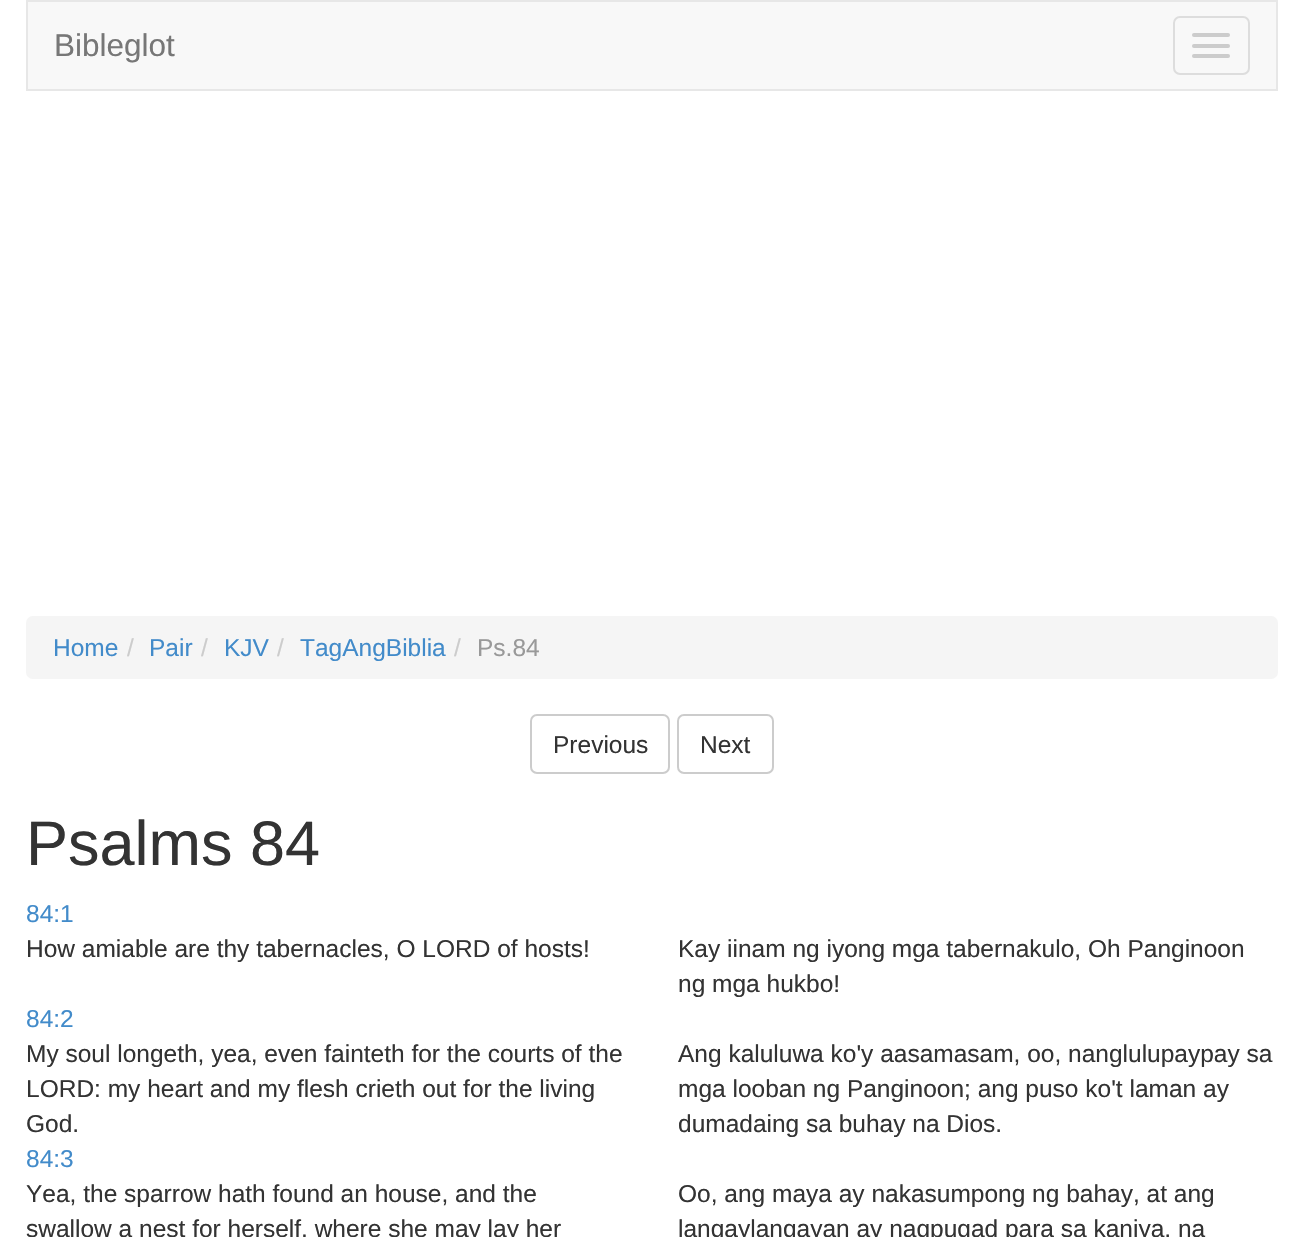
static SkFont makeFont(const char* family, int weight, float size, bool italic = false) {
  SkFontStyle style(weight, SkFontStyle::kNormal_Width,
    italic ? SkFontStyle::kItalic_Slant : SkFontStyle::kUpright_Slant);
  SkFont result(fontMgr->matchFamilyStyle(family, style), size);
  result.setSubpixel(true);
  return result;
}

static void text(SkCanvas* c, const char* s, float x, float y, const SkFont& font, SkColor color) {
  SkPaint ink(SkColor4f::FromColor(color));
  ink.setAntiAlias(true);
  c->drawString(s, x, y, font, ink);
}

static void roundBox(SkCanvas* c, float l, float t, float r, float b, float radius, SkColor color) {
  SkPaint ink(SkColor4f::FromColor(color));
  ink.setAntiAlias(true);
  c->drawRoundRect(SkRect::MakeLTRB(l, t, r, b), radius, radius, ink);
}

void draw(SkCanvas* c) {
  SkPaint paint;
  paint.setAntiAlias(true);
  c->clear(0xffffffff);
  paint.setColor(0xfff8f8f8);
  c->drawRect(SkRect::MakeLTRB(27, 1, 1277, 90), paint);
  paint.setStyle(SkPaint::kStroke_Style);
  paint.setStrokeWidth(2);
  paint.setColor(0xffe7e7e7);
  c->drawRect(SkRect::MakeLTRB(27, 1, 1277, 90), paint);
  SkFont face1 = makeFont("Liberation Sans", 400, 31.5f);
  text(c, "Bibleglot", 54, 56, face1, 0xff777777);
  paint.setColor(0xffdddddd);
  c->drawRoundRect(SkRect::MakeLTRB(1174, 17, 1249, 74), 6, 6, paint);
  roundBox(c, 1192, 33, 1230, 37, 2, 0xffcccccc);
  roundBox(c, 1192, 44, 1230, 48, 2, 0xffcccccc);
  roundBox(c, 1192, 54, 1230, 58, 2, 0xffcccccc);
  roundBox(c, 26, 616, 1278, 679, 7, 0xfff5f5f5);
  SkFont face2 = makeFont("Liberation Sans", 400, 24.5f);
  text(c, "Home", 53, 656, face2, 0xff428bca);
  text(c, "/", 127, 656, face2, 0xffcccccc);
  text(c, "Pair", 149, 656, face2, 0xff428bca);
  text(c, "/", 201, 656, face2, 0xffcccccc);
  text(c, "KJV", 224, 656, face2, 0xff428bca);
  text(c, "/", 277, 656, face2, 0xffcccccc);
  text(c, "TagAngBiblia", 300, 656, face2, 0xff428bca);
  text(c, "/", 454, 656, face2, 0xffcccccc);
  text(c, "Ps.84", 477, 656, face2, 0xff999999);
  paint.setColor(0xffcccccc);
  c->drawRoundRect(SkRect::MakeLTRB(531, 715, 669, 773), 6, 6, paint);
  text(c, "Previous", 553, 753, face2, 0xff333333);
  c->drawRoundRect(SkRect::MakeLTRB(678, 715, 773, 773), 6, 6, paint);
  text(c, "Next", 700, 753, face2, 0xff333333);
  SkFont face3 = makeFont("Liberation Sans", 400, 63);
  text(c, "Psalms 84", 26, 865, face3, 0xff333333);
  text(c, "84:1", 26, 922, face2, 0xff428bca);
  text(c, "How amiable are thy tabernacles, O LORD of hosts!", 26, 957, face2, 0xff333333);
  text(c, "Kay iinam ng iyong mga tabernakulo, Oh Panginoon", 678, 957, face2, 0xff333333);
  text(c, "ng mga hukbo!", 678, 992, face2, 0xff333333);
  text(c, "84:2", 26, 1027, face2, 0xff428bca);
  text(c, "My soul longeth, yea, even fainteth for the courts of the", 26, 1062, face2, 0xff333333);
  text(c, "LORD: my heart and my flesh crieth out for the living", 26, 1097, face2, 0xff333333);
  text(c, "God.", 26, 1132, face2, 0xff333333);
  text(c, "Ang kaluluwa ko'y aasamasam, oo, nanglulupaypay sa", 678, 1062, face2, 0xff333333);
  text(c, "mga looban ng Panginoon; ang puso ko't laman ay", 678, 1097, face2, 0xff333333);
  text(c, "dumadaing sa buhay na Dios.", 678, 1132, face2, 0xff333333);
  text(c, "84:3", 26, 1167, face2, 0xff428bca);
  text(c, "Yea, the sparrow hath found an house, and the", 26, 1202, face2, 0xff333333);
  text(c, "swallow a nest for herself, where she may lay her", 26, 1237, face2, 0xff333333);
  text(c, "Oo, ang maya ay nakasumpong ng bahay, at ang", 678, 1202, face2, 0xff333333);
  text(c, "langaylangayan ay nagpugad para sa kaniya, na", 678, 1237, face2, 0xff333333);
}
